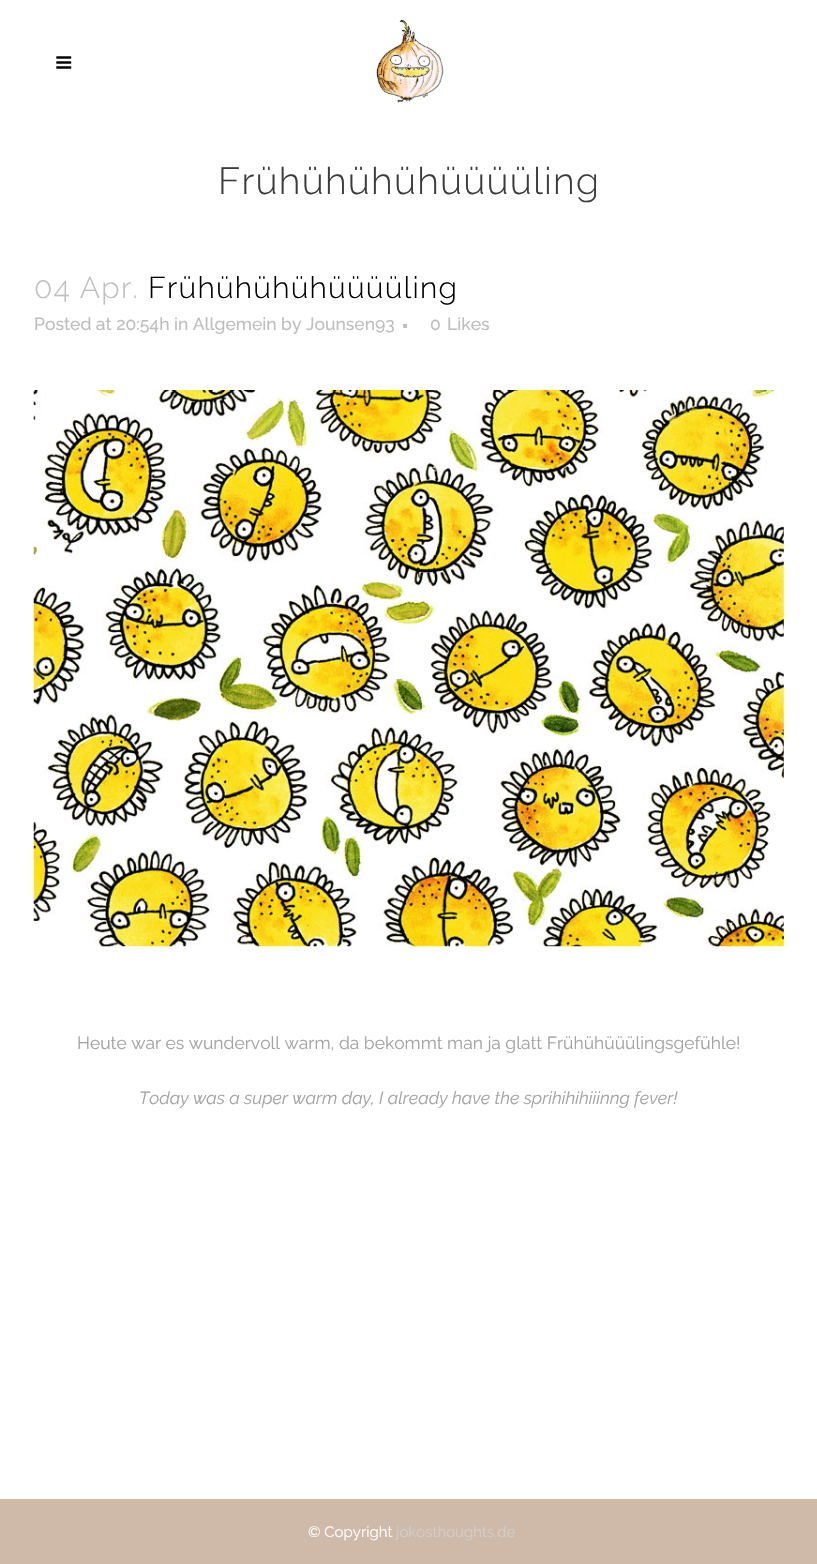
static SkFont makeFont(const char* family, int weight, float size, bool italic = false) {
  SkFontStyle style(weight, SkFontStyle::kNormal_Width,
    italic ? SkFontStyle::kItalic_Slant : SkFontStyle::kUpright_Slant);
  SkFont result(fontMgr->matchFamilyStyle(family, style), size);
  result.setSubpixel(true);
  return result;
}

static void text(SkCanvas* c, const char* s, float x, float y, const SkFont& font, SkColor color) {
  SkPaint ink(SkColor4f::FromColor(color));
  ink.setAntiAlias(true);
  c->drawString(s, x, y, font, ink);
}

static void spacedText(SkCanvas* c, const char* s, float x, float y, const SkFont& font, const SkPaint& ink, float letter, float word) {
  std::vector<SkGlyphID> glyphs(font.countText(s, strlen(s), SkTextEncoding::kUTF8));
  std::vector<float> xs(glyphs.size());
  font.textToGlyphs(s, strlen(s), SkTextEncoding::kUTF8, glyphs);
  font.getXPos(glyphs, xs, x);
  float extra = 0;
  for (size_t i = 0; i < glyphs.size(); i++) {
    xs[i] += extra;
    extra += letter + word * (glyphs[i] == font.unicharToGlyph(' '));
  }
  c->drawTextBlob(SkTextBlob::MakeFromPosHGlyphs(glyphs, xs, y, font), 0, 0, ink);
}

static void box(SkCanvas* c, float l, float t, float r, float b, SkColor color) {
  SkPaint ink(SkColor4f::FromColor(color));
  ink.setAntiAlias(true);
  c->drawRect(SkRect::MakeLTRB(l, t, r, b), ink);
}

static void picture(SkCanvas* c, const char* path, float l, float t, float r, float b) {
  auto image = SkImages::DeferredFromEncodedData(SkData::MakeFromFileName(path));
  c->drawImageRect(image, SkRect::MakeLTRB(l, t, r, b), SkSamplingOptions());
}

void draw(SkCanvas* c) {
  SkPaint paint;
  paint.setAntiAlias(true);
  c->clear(0xffffffff);
  picture(c, "img_01.png", 56, 56, 72, 69);
  picture(c, "img_02.png", 376, 19, 444, 103);
  SkFont face1 = makeFont("Raleway", 300, 37.5f);
  paint.setColor(0xff3c3c3c);
  spacedText(c, "Frühühühühüüüüling", 218, 194, face1, paint, 1.25f, 0);
  SkFont face2 = makeFont("Raleway", 300, 30);
  paint.setColor(0xffbebebe);
  spacedText(c, "04 Apr.", 34, 298, face2, paint, 1.25f, 0);
  paint.setColor(0xff000000);
  spacedText(c, "Frühühühühüüüüling", 148, 298, face2, paint, 1.25f, 0);
  SkFont face3 = makeFont("Raleway", 500, 17.5f);
  text(c, "Posted at 20:54h in Allgemein by Jounsen93", 34, 330, face3, 0xffbebebe);
  box(c, 403, 324, 407, 328, 0xffbebebe);
  text(c, "0", 430, 330, face3, 0xffbebebe);
  text(c, "Likes", 447, 330, face3, 0xffbebebe);
  picture(c, "img_03.png", 33, 390, 784, 947);
  SkFont face4 = makeFont("Raleway", 400, 17.5f);
  text(c, "Heute war es wundervoll warm, da bekommt man ja glatt Frühühüüülingsgefühle!", 77, 1049, face4, 0xffa2a2a2);
  SkFont face5 = makeFont("Raleway", 400, 17.5f, true);
  text(c, "Today was a super warm day, I already have the sprihihihiiinng fever!", 139, 1104, face5, 0xffa2a2a2);
  box(c, 0, 1499, 817, 1564, 0xffcfb9a8);
  SkFont face6 = makeFont("Raleway", 400, 15);
  text(c, "© Copyright", 308, 1537, face6, 0xffffffff);
  text(c, "jokosthoughts.de", 396, 1537, face6, 0xffcfcfcf);
}
